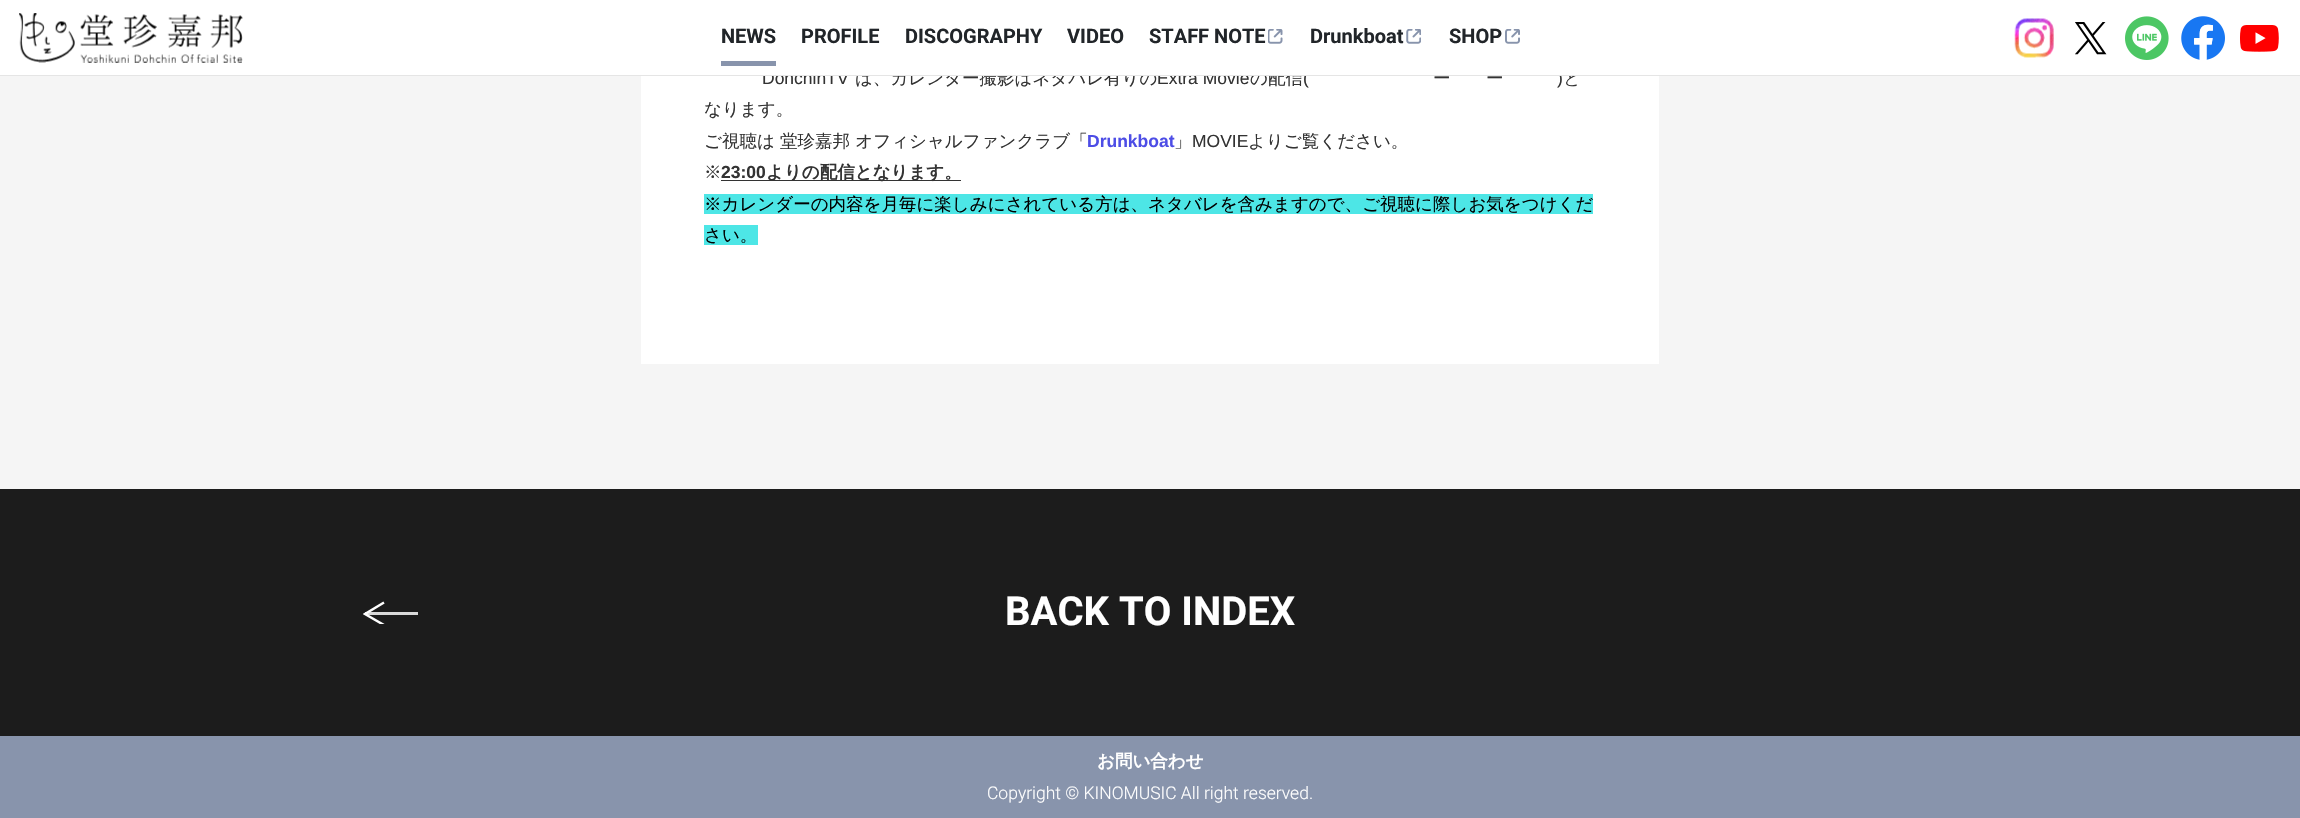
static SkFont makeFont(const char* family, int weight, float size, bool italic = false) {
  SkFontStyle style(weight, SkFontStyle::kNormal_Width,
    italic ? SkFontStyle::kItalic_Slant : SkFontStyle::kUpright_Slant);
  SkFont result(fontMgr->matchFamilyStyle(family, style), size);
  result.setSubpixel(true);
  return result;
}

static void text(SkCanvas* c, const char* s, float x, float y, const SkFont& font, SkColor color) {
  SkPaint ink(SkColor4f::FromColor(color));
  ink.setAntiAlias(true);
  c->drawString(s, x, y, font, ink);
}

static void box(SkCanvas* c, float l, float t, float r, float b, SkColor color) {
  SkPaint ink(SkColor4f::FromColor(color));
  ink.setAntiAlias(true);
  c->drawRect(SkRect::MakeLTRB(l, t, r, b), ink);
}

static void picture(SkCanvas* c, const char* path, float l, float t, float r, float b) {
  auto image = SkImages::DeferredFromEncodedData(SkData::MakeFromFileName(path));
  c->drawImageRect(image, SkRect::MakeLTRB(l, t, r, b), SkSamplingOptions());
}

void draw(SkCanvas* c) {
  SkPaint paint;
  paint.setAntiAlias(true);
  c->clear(0xff8894ac);
  box(c, 0, 76, 2300, 489, 0xfff5f5f5);
  box(c, 641, 76, 1659, 364, 0xffffffff);
  SkFont face1 = makeFont("Liberation Sans", 400, 17.5f);
  text(c, "DohchinTV", 762, 84, face1, 0xff333333);
  SkFont face2 = makeFont("WenQuanYi Zen Hei", 500, 17.5f);
  text(c, "は、カレンダー撮影はネタバレ有りの", 855, 84, face2, 0xff333333);
  text(c, "Extra Movie", 1157, 84, face1, 0xff333333);
  text(c, "の配信", 1250, 84, face2, 0xff333333);
  text(c, "(", 1303, 84, face1, 0xff333333);
  text(c, ")", 1557, 84, face1, 0xff333333);
  text(c, "と", 1563, 84, face2, 0xff333333);
  box(c, 0, 0, 2300, 75, 0xffffffff);
  box(c, 0, 75, 2300, 76, 0xffe5e5e5);
  picture(c, "img_01.png", 19, 13, 243, 63);
  box(c, 721, 61, 776, 66, 0xff8894ac);
  SkFont face3 = makeFont("Roboto", 700, 20);
  text(c, "NEWS", 721, 43, face3, 0xff212529);
  text(c, "PROFILE", 801, 43, face3, 0xff212529);
  text(c, "DISCOGRAPHY", 905, 43, face3, 0xff212529);
  text(c, "VIDEO", 1067, 43, face3, 0xff212529);
  text(c, "STAFF NOTE", 1149, 43, face3, 0xff212529);
  picture(c, "img_02.png", 1268, 29, 1283, 44);
  text(c, "Drunkboat", 1310, 43, face3, 0xff212529);
  picture(c, "img_03.png", 1406, 29, 1421, 44);
  text(c, "SHOP", 1449, 43, face3, 0xff212529);
  picture(c, "img_04.png", 1505, 29, 1520, 44);
  picture(c, "img_05.png", 2014, 18, 2054, 58);
  picture(c, "img_06.png", 2075, 22, 2107, 55);
  picture(c, "img_07.png", 2125, 16, 2169, 60);
  picture(c, "img_08.png", 2181, 16, 2225, 60);
  picture(c, "img_09.png", 2240, 25, 2279, 52);
  text(c, "ー", 1433, 84, face2, 0xff333333);
  text(c, "ー", 1486, 84, face2, 0xff333333);
  text(c, "なります。", 704, 115, face2, 0xff333333);
  text(c, "ご視聴は 堂珍嘉邦 オフィシャルファンクラブ「", 704, 147, face2, 0xff333333);
  SkFont face4 = makeFont("Liberation Sans", 700, 17.5f);
  text(c, "Drunkboat", 1087, 147, face4, 0xff4d4de6);
  text(c, "」", 1174, 147, face2, 0xff333333);
  text(c, "MOVIE", 1192, 147, face1, 0xff333333);
  text(c, "よりご覧ください。", 1248, 147, face2, 0xff333333);
  text(c, "※", 704, 178, face2, 0xff333333);
  text(c, "23:00", 721, 178, face4, 0xff333333);
  box(c, 721, 180, 961, 181, 0xff333333);
  SkFont face5 = makeFont("WenQuanYi Zen Hei", 700, 17.5f);
  text(c, "よりの配信となります。", 766, 178, face5, 0xff333333);
  box(c, 704, 194, 1593, 214, 0xff4de6e6);
  text(c, "※カレンダーの内容を月毎に楽しみにされている方は、ネタバレを含みますので、ご視聴に際しお気をつけくだ", 704, 210, face2, 0xff000000);
  box(c, 704, 225, 758, 245, 0xff4de6e6);
  text(c, "さい。", 704, 241, face2, 0xff000000);
  box(c, 0, 489, 2300, 736, 0xff1c1c1c);
  box(c, 365, 612, 418, 615, 0xffd9d9d9);
  c->save();
  c->clipRect(SkRect::MakeLTRB(363, 601, 418, 624));
  paint.setStyle(SkPaint::kStroke_Style);
  paint.setStrokeWidth(2.5f);
  paint.setColor(0xffffffff);
  c->drawPath(SkPathBuilder().moveTo(384, 602.5f).lineTo(365, 614).lineTo(384, 625).detach(), paint);
  c->restore();
  SkFont face6 = makeFont("Roboto", 700, 40);
  text(c, "BACK TO INDEX", 1005, 625, face6, 0xffffffff);
  text(c, "お問い合わせ", 1097, 767, face5, 0xffffffff);
  SkFont face7 = makeFont("Roboto", 300, 17.5f);
  text(c, "Copyright © KINOMUSIC All right reserved.", 987, 799, face7, 0xffffffff);
}
